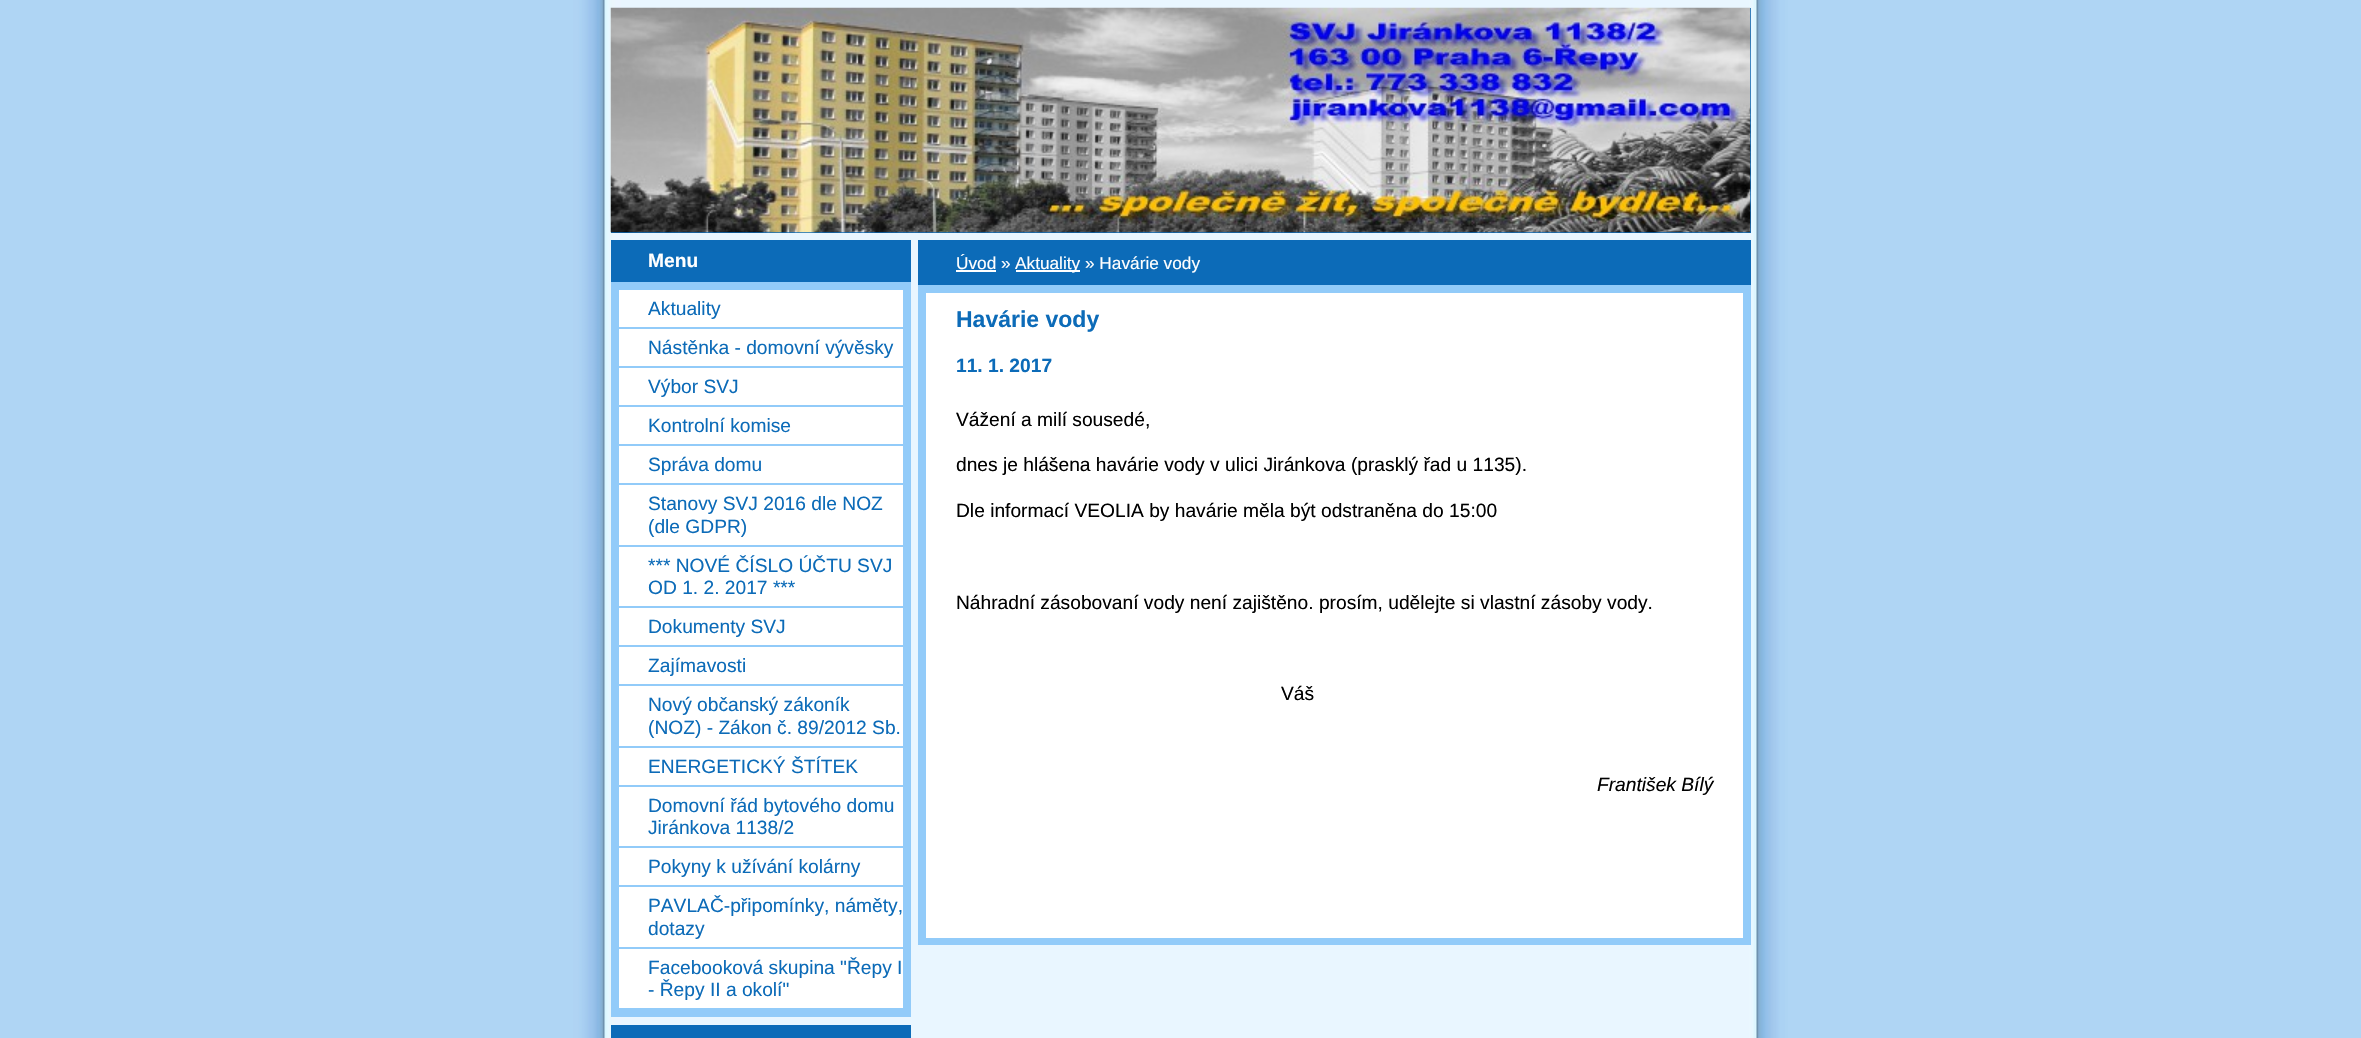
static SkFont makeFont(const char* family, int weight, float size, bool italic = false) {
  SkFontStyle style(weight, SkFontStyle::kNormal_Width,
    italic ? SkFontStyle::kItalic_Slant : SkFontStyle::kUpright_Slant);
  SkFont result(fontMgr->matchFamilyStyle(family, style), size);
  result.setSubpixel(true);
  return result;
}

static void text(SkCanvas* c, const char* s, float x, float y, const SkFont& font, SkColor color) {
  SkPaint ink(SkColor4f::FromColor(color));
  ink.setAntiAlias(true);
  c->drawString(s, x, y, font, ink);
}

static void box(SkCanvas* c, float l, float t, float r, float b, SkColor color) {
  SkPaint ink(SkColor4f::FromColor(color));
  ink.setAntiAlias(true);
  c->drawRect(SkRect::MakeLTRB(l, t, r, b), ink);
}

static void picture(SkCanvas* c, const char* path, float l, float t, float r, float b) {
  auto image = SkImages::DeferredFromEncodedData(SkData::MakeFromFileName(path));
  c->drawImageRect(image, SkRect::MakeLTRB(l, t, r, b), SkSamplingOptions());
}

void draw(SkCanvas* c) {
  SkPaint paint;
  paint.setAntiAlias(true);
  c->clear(0xffafd5f4);
  picture(c, "img_01.png", 573, 0, 1788, 1038);
  box(c, 611, 8, 1751, 233, 0xff0c6bb8);
  picture(c, "img_02.png", 610, 7, 1751, 233);
  box(c, 611, 240, 911, 282, 0xff0c6bb8);
  SkFont face1 = makeFont("Liberation Sans", 700, 19.2f);
  text(c, "Menu", 648, 267, face1, 0xffffffff);
  box(c, 619, 290, 903, 1008, 0xffffffff);
  paint.setStyle(SkPaint::kStroke_Style);
  paint.setStrokeWidth(8);
  paint.setColor(0xff92cbf9);
  c->drawRect(SkRect::MakeLTRB(615, 286, 907, 1013), paint);
  box(c, 618, 327, 903, 329, 0xff92cbf9);
  SkFont face2 = makeFont("Liberation Sans", 400, 19.2f);
  text(c, "Aktuality", 648, 315, face2, 0xff0c6bb8);
  box(c, 618, 366, 903, 368, 0xff92cbf9);
  text(c, "Nástěnka - domovní vývěsky", 648, 354, face2, 0xff0c6bb8);
  box(c, 618, 405, 903, 407, 0xff92cbf9);
  text(c, "Výbor SVJ", 648, 393, face2, 0xff0c6bb8);
  box(c, 618, 444, 903, 446, 0xff92cbf9);
  text(c, "Kontrolní komise", 648, 432, face2, 0xff0c6bb8);
  box(c, 618, 483, 903, 485, 0xff92cbf9);
  text(c, "Správa domu", 648, 471, face2, 0xff0c6bb8);
  box(c, 618, 545, 903, 547, 0xff92cbf9);
  text(c, "Stanovy SVJ 2016 dle NOZ", 648, 510, face2, 0xff0c6bb8);
  text(c, "(dle GDPR)", 648, 533, face2, 0xff0c6bb8);
  box(c, 618, 606, 903, 608, 0xff92cbf9);
  text(c, "*** NOVÉ ČÍSLO ÚČTU SVJ", 648, 572, face2, 0xff0c6bb8);
  text(c, "OD 1. 2. 2017 ***", 648, 594, face2, 0xff0c6bb8);
  box(c, 618, 645, 903, 647, 0xff92cbf9);
  text(c, "Dokumenty SVJ", 648, 633, face2, 0xff0c6bb8);
  box(c, 618, 684, 903, 686, 0xff92cbf9);
  text(c, "Zajímavosti", 648, 672, face2, 0xff0c6bb8);
  box(c, 618, 746, 903, 748, 0xff92cbf9);
  text(c, "Nový občanský zákoník", 648, 711, face2, 0xff0c6bb8);
  text(c, "(NOZ) - Zákon č. 89/2012 Sb.", 648, 734, face2, 0xff0c6bb8);
  box(c, 618, 785, 903, 787, 0xff92cbf9);
  text(c, "ENERGETICKÝ ŠTÍTEK", 648, 773, face2, 0xff0c6bb8);
  box(c, 618, 846, 903, 848, 0xff92cbf9);
  text(c, "Domovní řád bytového domu", 648, 812, face2, 0xff0c6bb8);
  text(c, "Jiránkova 1138/2", 648, 834, face2, 0xff0c6bb8);
  box(c, 618, 885, 903, 887, 0xff92cbf9);
  text(c, "Pokyny k užívání kolárny", 648, 873, face2, 0xff0c6bb8);
  box(c, 618, 947, 903, 949, 0xff92cbf9);
  text(c, "PAVLAČ-připomínky, náměty,", 648, 912, face2, 0xff0c6bb8);
  text(c, "dotazy", 648, 935, face2, 0xff0c6bb8);
  box(c, 618, 1008, 903, 1009, 0xff92cbf9);
  text(c, "Facebooková skupina \"Řepy I", 648, 974, face2, 0xff0c6bb8);
  text(c, "- Řepy II a okolí\"", 648, 996, face2, 0xff0c6bb8);
  box(c, 611, 1025, 911, 1038, 0xff0c6bb8);
  box(c, 918, 240, 1751, 285, 0xff0c6bb8);
  SkFont face3 = makeFont("Liberation Sans", 400, 17.25f);
  text(c, "Úvod »", 956, 269, face3, 0xffffffff);
  box(c, 956, 270, 996, 272, 0xffffffff);
  box(c, 1016, 270, 1080, 272, 0xffffffff);
  text(c, "Aktuality » Havárie vody", 1015, 269, face3, 0xffffffff);
  box(c, 926, 293, 1743, 390, 0xffffffff);
  c->drawRect(SkRect::MakeLTRB(922, 289, 1747, 941), paint);
  SkFont face4 = makeFont("Liberation Sans", 700, 23);
  text(c, "Havárie vody", 956, 327, face4, 0xff0c6bb8);
  text(c, "11. 1. 2017", 956, 372, face1, 0xff0c6bb8);
  box(c, 926, 390, 1743, 938, 0xffffffff);
  text(c, "Vážení a milí sousedé,", 956, 426, face2, 0xff000000);
  text(c, "dnes je hlášena havárie vody v ulici Jiránkova (prasklý řad u 1135).", 956, 471, face2, 0xff000000);
  text(c, "Dle informací VEOLIA by havárie měla být odstraněna do 15:00", 956, 517, face2, 0xff000000);
  text(c, "Náhradní zásobovaní vody není zajištěno. prosím, udělejte si vlastní zásoby vody.", 956, 609, face2, 0xff000000);
  text(c, "Váš", 1281, 700, face2, 0xff000000);
  SkFont face5 = makeFont("Liberation Sans", 400, 19.2f, true);
  text(c, "František Bílý", 1597, 791, face5, 0xff000000);
}
